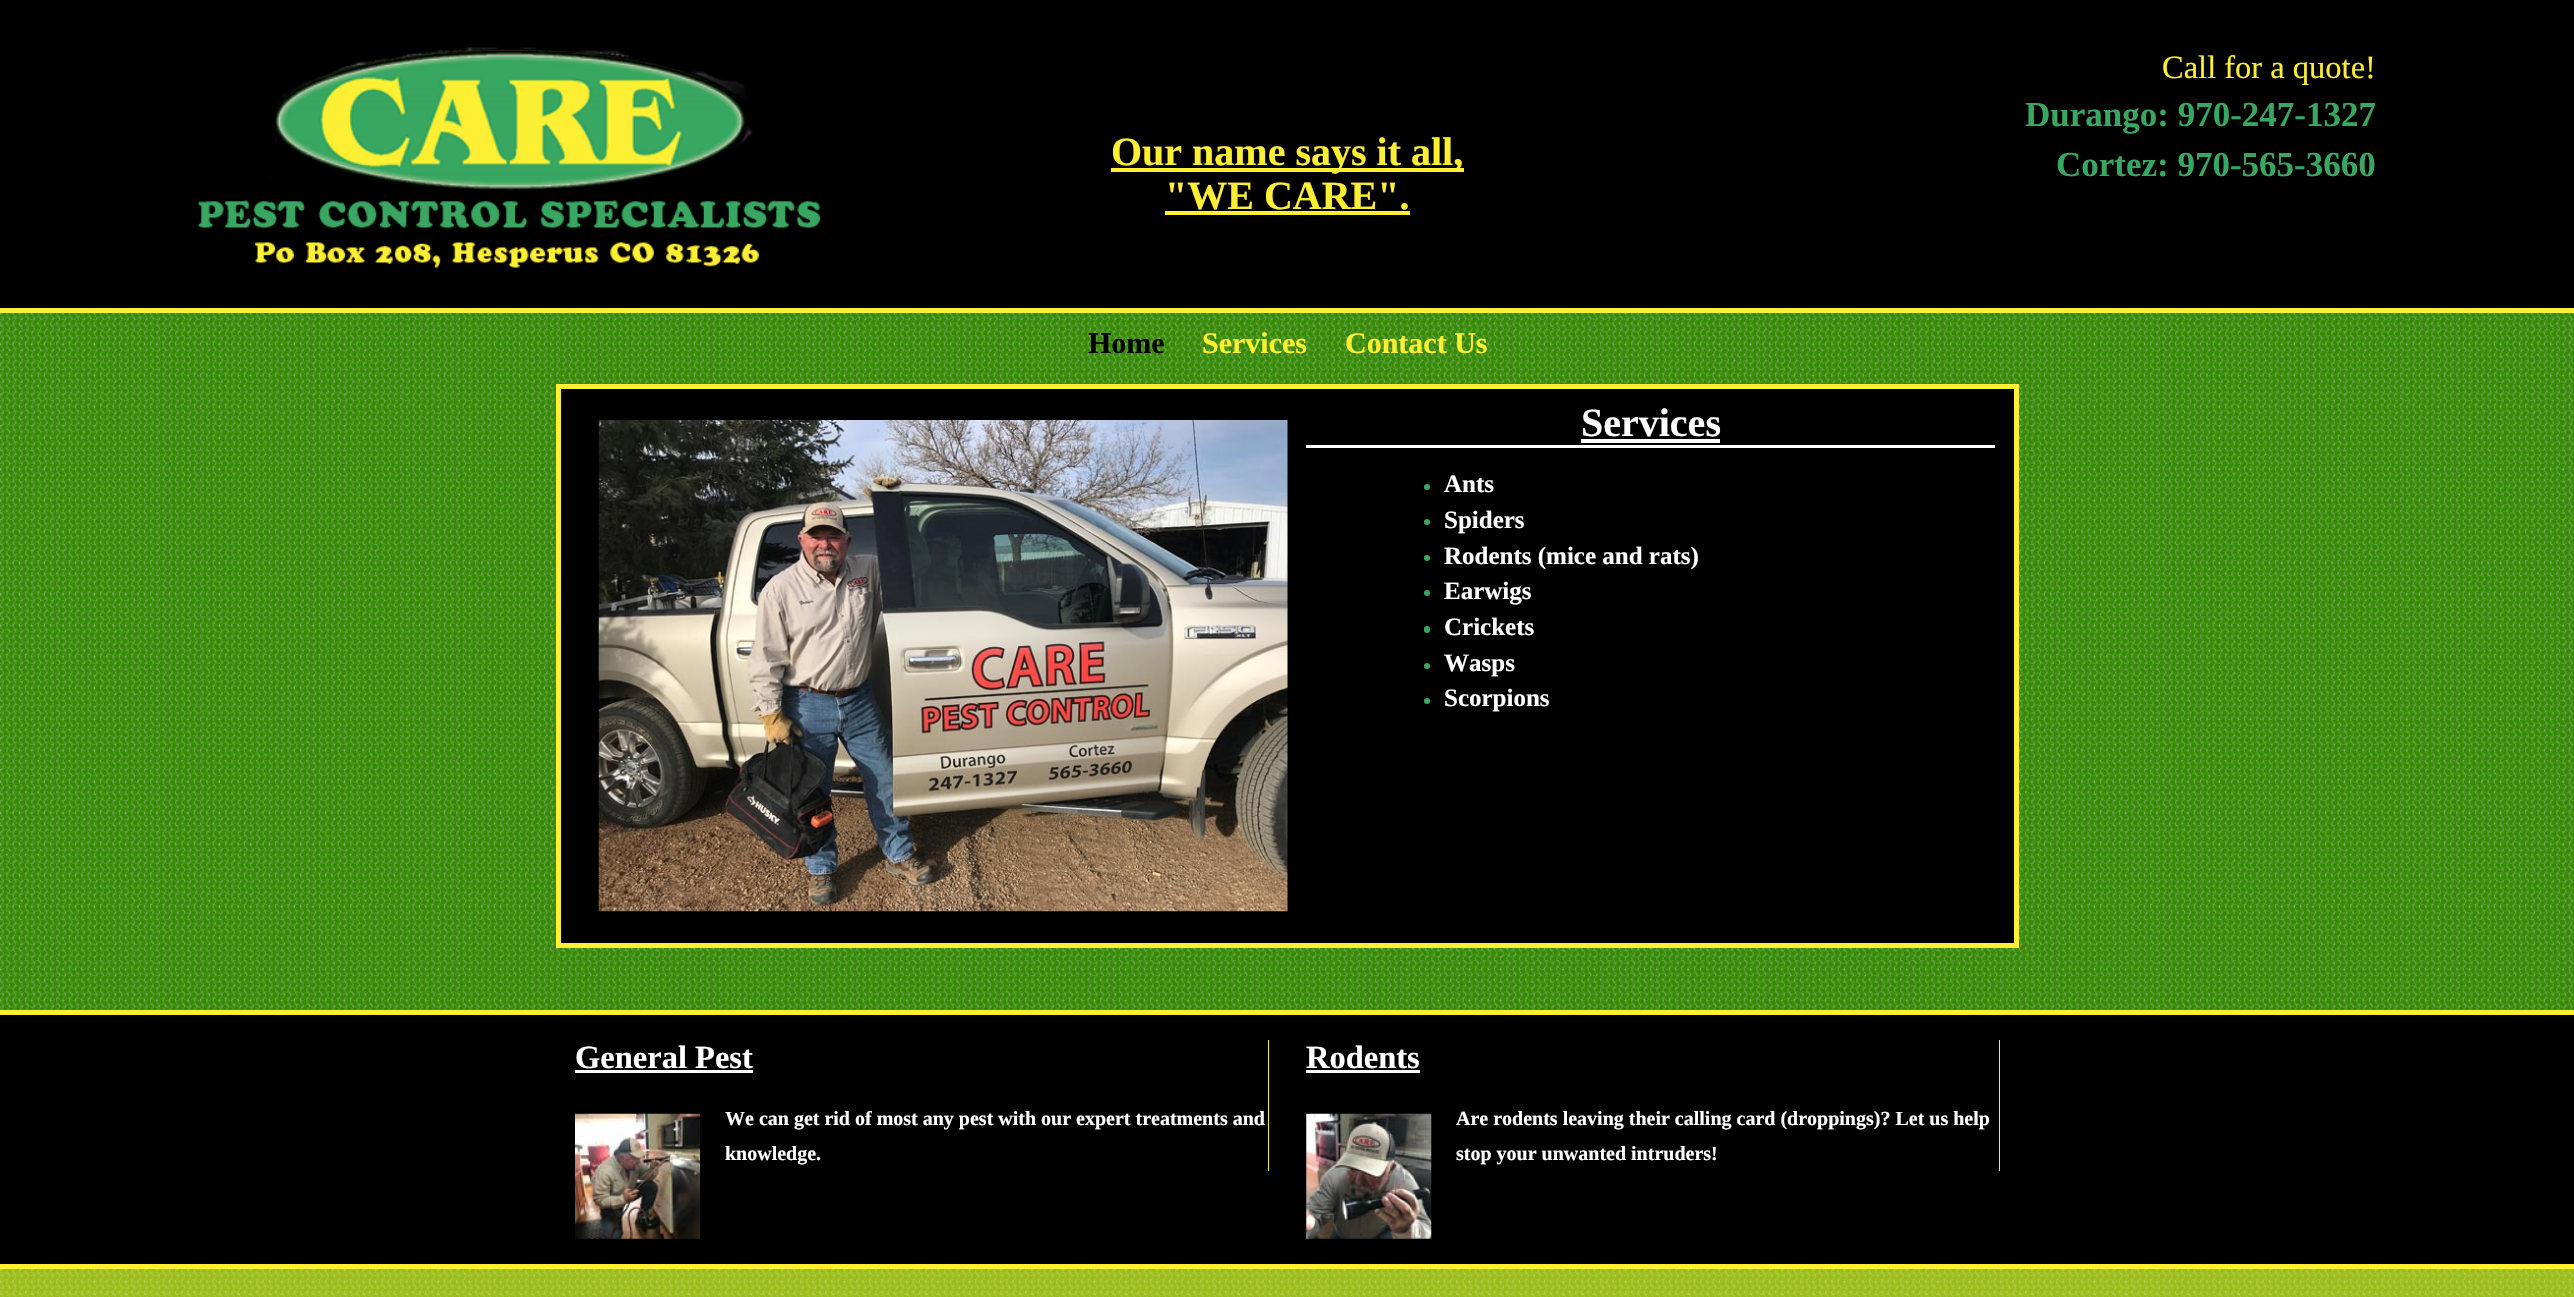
static SkFont makeFont(const char* family, int weight, float size, bool italic = false) {
  SkFontStyle style(weight, SkFontStyle::kNormal_Width,
    italic ? SkFontStyle::kItalic_Slant : SkFontStyle::kUpright_Slant);
  SkFont result(fontMgr->matchFamilyStyle(family, style), size);
  result.setSubpixel(true);
  return result;
}

static void text(SkCanvas* c, const char* s, float x, float y, const SkFont& font, SkColor color) {
  SkPaint ink(SkColor4f::FromColor(color));
  ink.setAntiAlias(true);
  c->drawString(s, x, y, font, ink);
}

static void box(SkCanvas* c, float l, float t, float r, float b, SkColor color) {
  SkPaint ink(SkColor4f::FromColor(color));
  ink.setAntiAlias(true);
  c->drawRect(SkRect::MakeLTRB(l, t, r, b), ink);
}

static void roundBox(SkCanvas* c, float l, float t, float r, float b, float radius, SkColor color) {
  SkPaint ink(SkColor4f::FromColor(color));
  ink.setAntiAlias(true);
  c->drawRoundRect(SkRect::MakeLTRB(l, t, r, b), radius, radius, ink);
}

static void picture(SkCanvas* c, const char* path, float l, float t, float r, float b) {
  auto image = SkImages::DeferredFromEncodedData(SkData::MakeFromFileName(path));
  c->drawImageRect(image, SkRect::MakeLTRB(l, t, r, b), SkSamplingOptions());
}

void draw(SkCanvas* c) {
  SkPaint paint;
  paint.setAntiAlias(true);
  c->clear(0xff338c00);
  picture(c, "img_01.png", 0, 313, 2574, 1297);
  box(c, 0, 0, 2574, 308, 0xff000000);
  box(c, 0, 308, 2574, 313, 0xfffdef33);
  picture(c, "img_02.png", 198, 47, 821, 268);
  box(c, 1111, 168, 1464, 172, 0xfffdef33);
  SkFont face1 = makeFont("Liberation Serif", 700, 40);
  text(c, "Our name says it all,", 1111, 165, face1, 0xfffdef33);
  text(c, "\"WE CARE\".", 1165, 209, face1, 0xfffdef33);
  box(c, 1165, 211, 1410, 215, 0xfffdef33);
  SkFont face2 = makeFont("Liberation Serif", 400, 32.5f);
  text(c, "Call for a quote!", 2162, 78, face2, 0xfffdef33);
  SkFont face3 = makeFont("Liberation Serif", 700, 35);
  text(c, "Durango: 970-247-1327", 2025, 126, face3, 0xff39a761);
  text(c, "Cortez: 970-565-3660", 2056, 176, face3, 0xff39a761);
  SkFont face4 = makeFont("Liberation Serif", 700, 30);
  text(c, "Home", 1088, 353, face4, 0xff000000);
  text(c, "Services", 1202, 353, face4, 0xfffdef33);
  text(c, "Contact Us", 1345, 353, face4, 0xfffdef33);
  paint.setColor(0xff000000);
  c->drawRect(SkRect::MakeLTRB(558.5f, 386.5f, 2016.5f, 945.5f), paint);
  paint.setStyle(SkPaint::kStroke_Style);
  paint.setStrokeWidth(5);
  paint.setColor(0xfffdef33);
  c->drawRect(SkRect::MakeLTRB(558.5f, 386.5f, 2016.5f, 945.5f), paint);
  picture(c, "img_03.png", 598, 420, 1288, 912);
  box(c, 1306, 445, 1995, 448, 0xffffffff);
  text(c, "Services", 1581, 436, face1, 0xffffffff);
  box(c, 1581, 439, 1720, 443, 0xffffffff);
  paint.setStyle(SkPaint::kFill_Style);
  paint.setColor(0xff39a761);
  c->drawCircle(1427, 487, 3, paint);
  SkFont face5 = makeFont("Liberation Serif", 700, 25);
  text(c, "Ants", 1444, 492, face5, 0xffffffff);
  c->drawCircle(1427, 522, 3, paint);
  text(c, "Spiders", 1444, 528, face5, 0xffffffff);
  c->drawCircle(1427, 558, 3, paint);
  text(c, "Rodents (mice and rats)", 1444, 564, face5, 0xffffffff);
  c->drawCircle(1427, 593, 3, paint);
  text(c, "Earwigs", 1444, 599, face5, 0xffffffff);
  roundBox(c, 1424, 626, 1430, 633, 3, 0xff39a761);
  text(c, "Crickets", 1444, 635, face5, 0xffffffff);
  c->drawCircle(1427, 666, 3, paint);
  text(c, "Wasps", 1444, 671, face5, 0xffffffff);
  c->drawCircle(1427, 701, 3, paint);
  text(c, "Scorpions", 1444, 706, face5, 0xffffffff);
  box(c, 0, 1015, 2574, 1264, 0xff000000);
  box(c, 0, 1010, 2574, 1015, 0xfffdef33);
  box(c, 0, 1264, 2574, 1269, 0xfffdef33);
  box(c, 1268, 1040, 1269, 1171, 0xfffdef33);
  SkFont face6 = makeFont("Liberation Serif", 700, 32.5f);
  text(c, "General Pest", 575, 1068, face6, 0xffffffff);
  box(c, 575, 1070, 753, 1073, 0xffffffff);
  picture(c, "img_04.png", 575, 1113, 700, 1239);
  SkFont face7 = makeFont("Liberation Serif", 700, 20);
  text(c, "We can get rid of most any pest with our expert treatments and", 725, 1125, face7, 0xffffffff);
  text(c, "knowledge.", 725, 1160, face7, 0xffffffff);
  box(c, 1999, 1040, 2000, 1171, 0xfffdef33);
  text(c, "Rodents", 1306, 1068, face6, 0xffffffff);
  box(c, 1306, 1070, 1420, 1073, 0xffffffff);
  picture(c, "img_05.png", 1306, 1113, 1432, 1239);
  text(c, "Are rodents leaving their calling card (droppings)? Let us help", 1456, 1125, face7, 0xffffffff);
  text(c, "stop your unwanted intruders!", 1456, 1160, face7, 0xffffffff);
  box(c, 0, 1269, 2574, 1297, 0x80fdef33);
}
